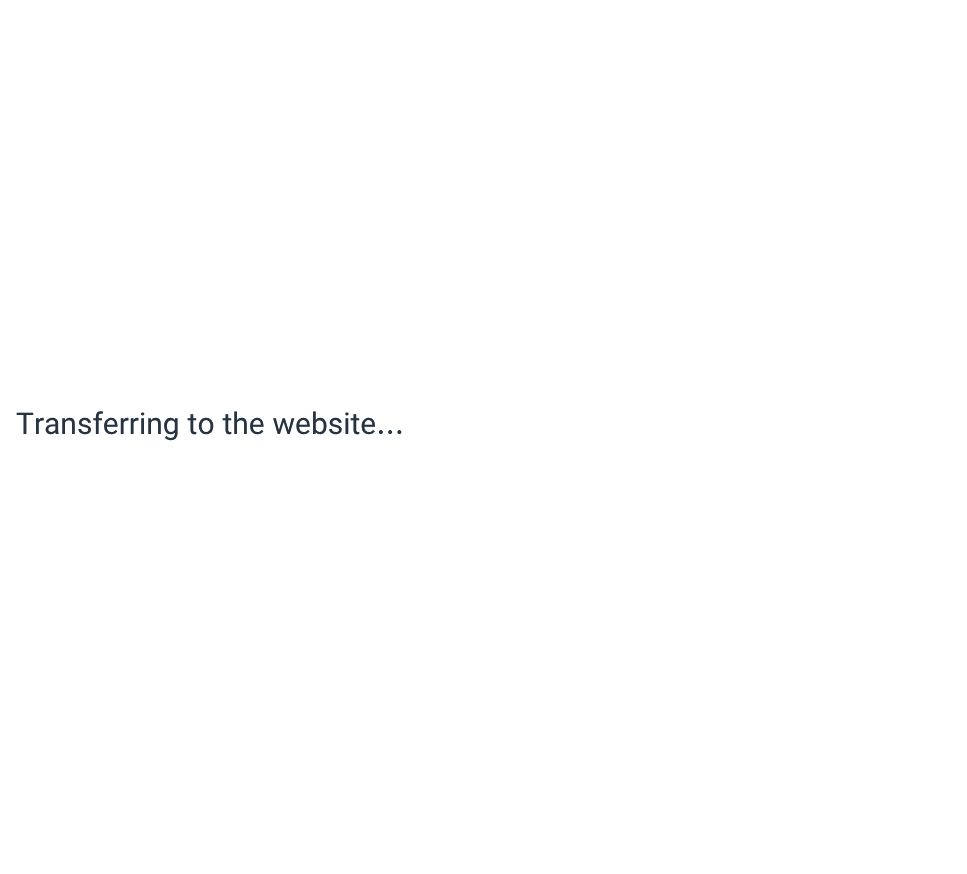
static SkFont makeFont(const char* family, int weight, float size, bool italic = false) {
  SkFontStyle style(weight, SkFontStyle::kNormal_Width,
    italic ? SkFontStyle::kItalic_Slant : SkFontStyle::kUpright_Slant);
  SkFont result(fontMgr->matchFamilyStyle(family, style), size);
  result.setSubpixel(true);
  return result;
}

static void text(SkCanvas* c, const char* s, float x, float y, const SkFont& font, SkColor color) {
  SkPaint ink(SkColor4f::FromColor(color));
  ink.setAntiAlias(true);
  c->drawString(s, x, y, font, ink);
}

void draw(SkCanvas* c) {
  SkPaint paint;
  paint.setAntiAlias(true);
  c->clear(0xffffffff);
  SkFont face1 = makeFont("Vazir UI", 400, 30);
  text(c, "Transferring to the website...", 16, 434, face1, 0xff253343);
}
